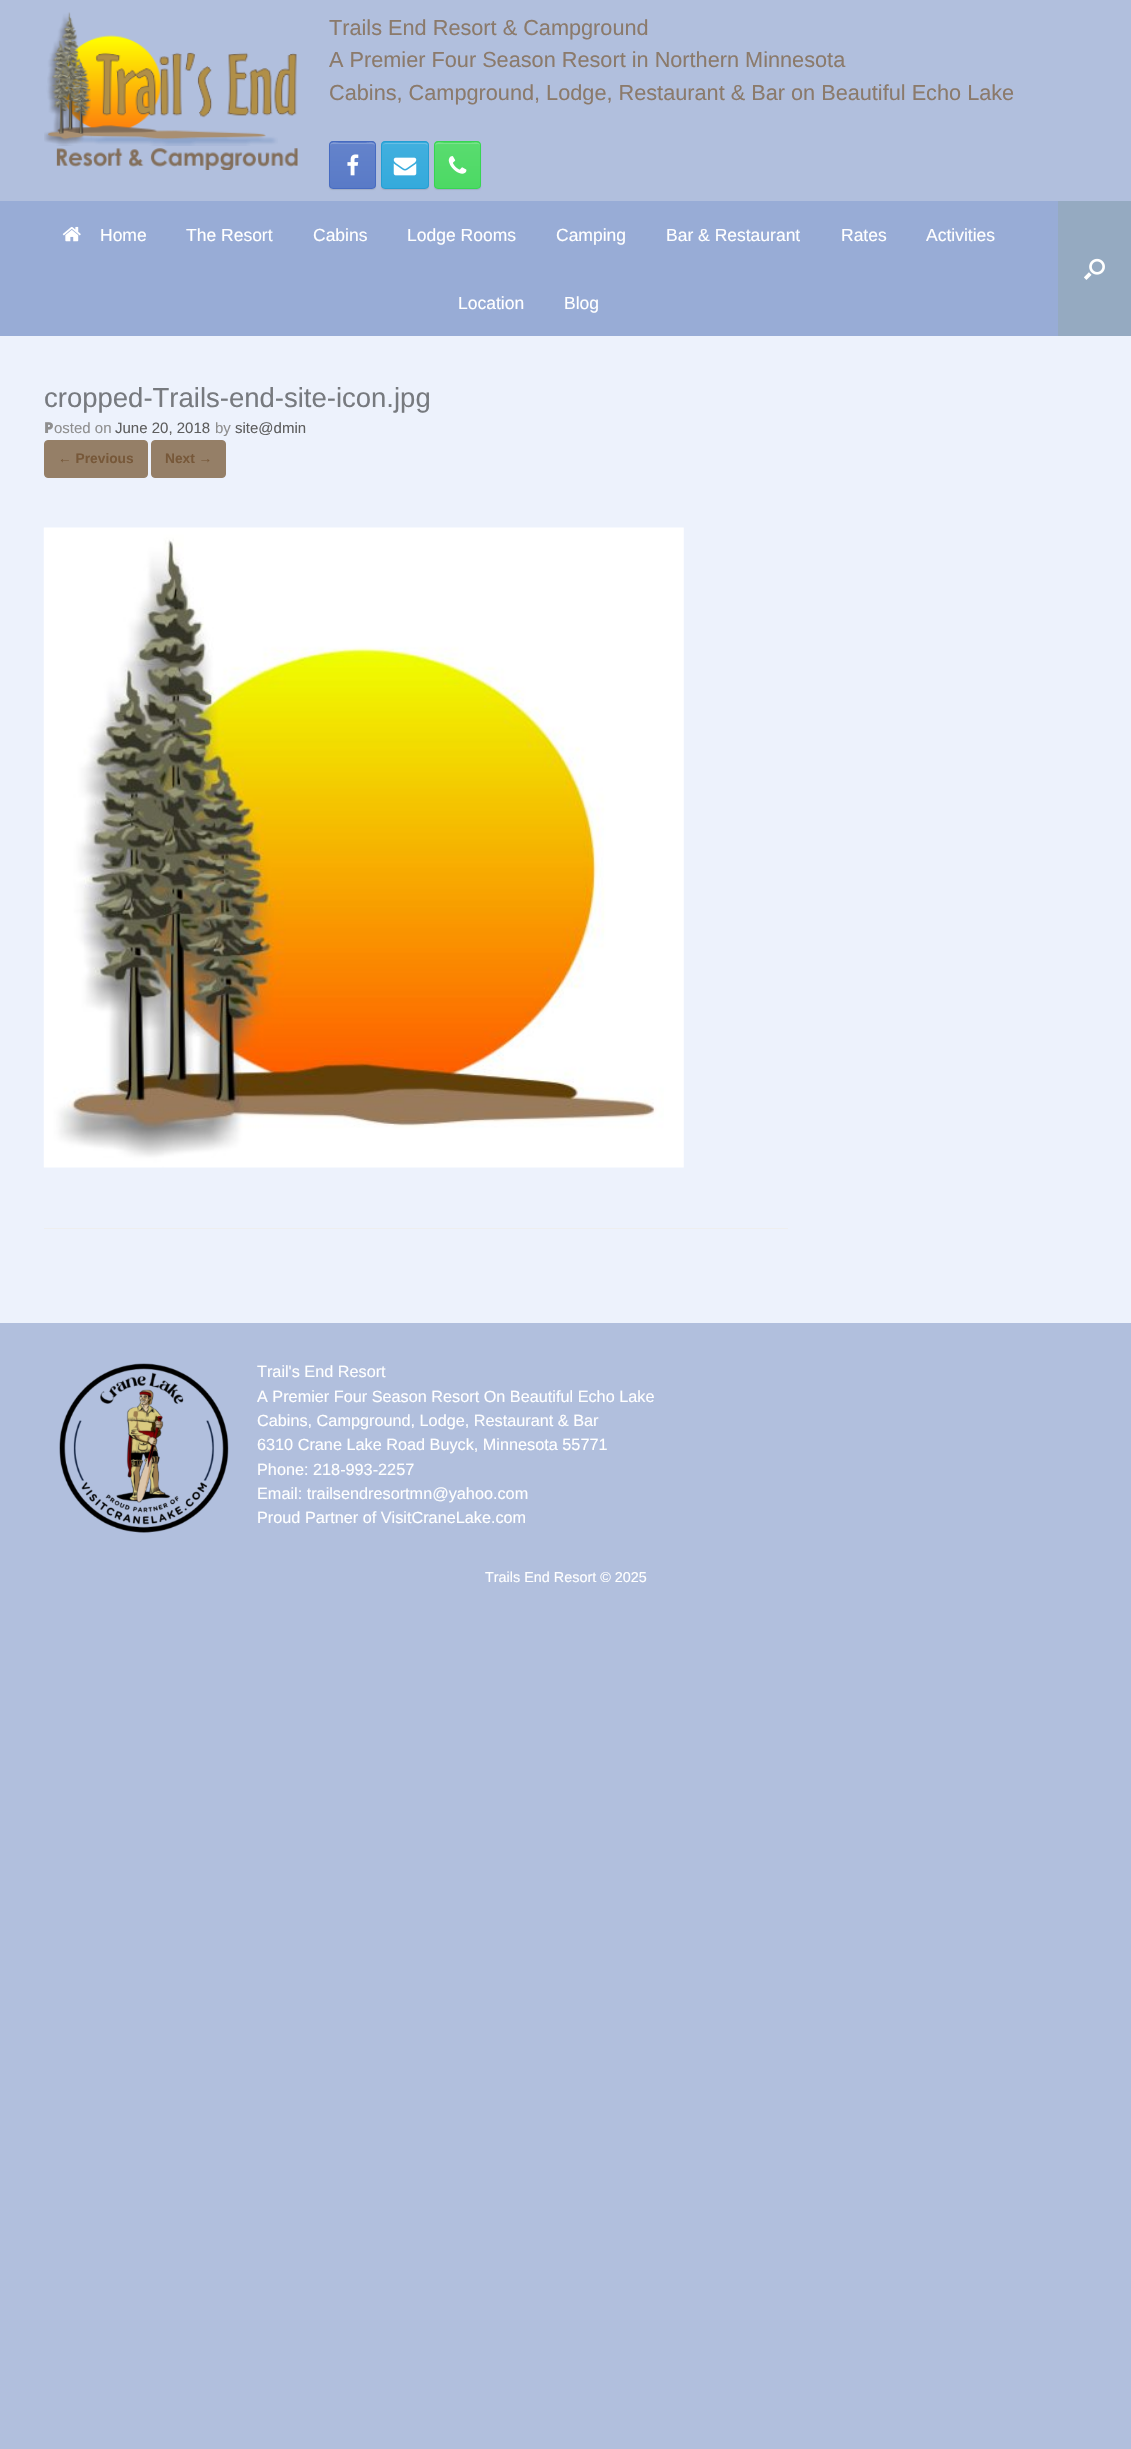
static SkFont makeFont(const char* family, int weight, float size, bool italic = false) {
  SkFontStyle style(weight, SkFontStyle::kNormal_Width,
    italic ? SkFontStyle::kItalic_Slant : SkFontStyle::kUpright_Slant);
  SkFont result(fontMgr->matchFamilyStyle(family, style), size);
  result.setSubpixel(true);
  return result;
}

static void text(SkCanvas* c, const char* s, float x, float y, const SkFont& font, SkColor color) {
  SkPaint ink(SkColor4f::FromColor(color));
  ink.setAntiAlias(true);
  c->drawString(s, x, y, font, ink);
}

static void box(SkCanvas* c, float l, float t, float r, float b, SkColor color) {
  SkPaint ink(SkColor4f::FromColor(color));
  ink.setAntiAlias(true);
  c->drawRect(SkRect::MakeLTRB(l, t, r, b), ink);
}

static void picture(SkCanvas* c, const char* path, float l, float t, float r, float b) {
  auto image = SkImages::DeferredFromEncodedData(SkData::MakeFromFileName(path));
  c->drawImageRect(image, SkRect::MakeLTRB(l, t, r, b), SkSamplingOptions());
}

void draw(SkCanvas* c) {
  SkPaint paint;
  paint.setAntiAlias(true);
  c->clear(0xffb1bfdd);
  picture(c, "img_01.png", 44, 12, 298, 170);
  SkFont face1 = makeFont("Liberation Sans", 400, 21.7f);
  text(c, "Trails End Resort & Campground", 329, 35, face1, 0xff8b7a6b);
  text(c, "A Premier Four Season Resort in Northern Minnesota", 329, 67, face1, 0xff8b7a6b);
  text(c, "Cabins, Campground, Lodge, Restaurant & Bar on Beautiful Echo Lake", 329, 100, face1, 0xff8b7a6b);
  paint.setColor(0x1a000000);
  paint.setMaskFilter(SkMaskFilter::MakeBlur(kNormal_SkBlurStyle, 0.5f));
  c->drawRoundRect(SkRect::MakeLTRB(329, 143, 376, 190), 4, 4, paint);
  paint.setMaskFilter(nullptr);
  c->save();
  c->clipPath(SkPathBuilder().moveTo(333, 141).lineTo(372, 141).cubicTo(374, 141, 376, 143, 376, 145).lineTo(376, 185).cubicTo(376, 187, 374, 189, 372, 189).lineTo(333, 189).cubicTo(331, 189, 329, 187, 329, 185).lineTo(329, 145).cubicTo(329, 143, 331, 141, 333, 141).close().detach(), true);
  {
    const SkColor colors[] = {0xff597ac7, 0xff6483cb};
    const float stops[] = {0, 1};
    const SkPoint ends[] = {{330, 143}, {330, 98}};
    paint.setShader(SkGradientShader::MakeLinear(ends, colors, stops, 2, SkTileMode::kClamp));
    paint.setAlpha(255);
  }
  c->drawRect(SkRect::MakeLTRB(329, 141, 376, 143), paint);
  {
    const SkColor colors[] = {0xff597ac7, 0xff6483cb};
    const float stops[] = {0, 1};
    const SkPoint ends[] = {{330, 188}, {330, 143}};
    paint.setShader(SkGradientShader::MakeLinear(ends, colors, stops, 2, SkTileMode::kClamp));
    paint.setAlpha(255);
  }
  c->drawRect(SkRect::MakeLTRB(329, 143, 376, 188), paint);
  c->restore();
  paint.setShader(nullptr);
  paint.setColor(0xff839cd5);
  c->drawPath(SkPathBuilder().moveTo(332, 144).lineTo(372, 144).cubicTo(374, 144, 375, 145, 375, 146).cubicTo(375, 141, 369, 143, 366, 143).lineTo(339, 143).cubicTo(336, 143, 330, 141, 330, 146).cubicTo(330, 145, 331, 144, 332, 144).close().detach(), paint);
  paint.setStyle(SkPaint::kStroke_Style);
  paint.setStrokeWidth(1);
  paint.setColor(0xff466bc1);
  c->drawRoundRect(SkRect::MakeLTRB(329.5f, 141.5f, 375.5f, 188.5f), 3.5f, 3.5f, paint);
  picture(c, "img_02.png", 347, 154, 359, 176);
  paint.setStyle(SkPaint::kFill_Style);
  paint.setColor(0x1a000000);
  paint.setMaskFilter(SkMaskFilter::MakeBlur(kNormal_SkBlurStyle, 0.5f));
  c->drawRoundRect(SkRect::MakeLTRB(381, 143, 429, 190), 4, 4, paint);
  paint.setMaskFilter(nullptr);
  c->save();
  c->clipPath(SkPathBuilder().moveTo(385, 141).lineTo(425, 141).cubicTo(427, 141, 429, 143, 429, 145).lineTo(429, 185).cubicTo(429, 187, 427, 189, 425, 189).lineTo(385, 189).cubicTo(383, 189, 381, 187, 381, 185).lineTo(381, 145).cubicTo(381, 143, 383, 141, 385, 141).close().detach(), true);
  {
    const SkColor colors[] = {0xff34aadc, 0xff41afde};
    const float stops[] = {0, 1};
    const SkPoint ends[] = {{383, 143}, {383, 98}};
    paint.setShader(SkGradientShader::MakeLinear(ends, colors, stops, 2, SkTileMode::kClamp));
    paint.setAlpha(255);
  }
  c->drawRect(SkRect::MakeLTRB(381, 141, 429, 143), paint);
  {
    const SkColor colors[] = {0xff34aadc, 0xff41afde};
    const float stops[] = {0, 1};
    const SkPoint ends[] = {{383, 188}, {383, 143}};
    paint.setShader(SkGradientShader::MakeLinear(ends, colors, stops, 2, SkTileMode::kClamp));
    paint.setAlpha(255);
  }
  c->drawRect(SkRect::MakeLTRB(381, 143, 429, 188), paint);
  c->restore();
  paint.setShader(nullptr);
  paint.setColor(0xff67bfe5);
  c->drawPath(SkPathBuilder().moveTo(385, 144).lineTo(425, 144).cubicTo(426, 144, 428, 145, 428, 146).cubicTo(428, 144, 427, 143, 426, 143).lineTo(386, 143).cubicTo(384, 143, 384, 144, 383, 145).close().detach(), paint);
  paint.setStyle(SkPaint::kStroke_Style);
  paint.setColor(0xff249ed2);
  c->drawRoundRect(SkRect::MakeLTRB(381.5f, 141.5f, 428.5f, 188.5f), 3.5f, 3.5f, paint);
  picture(c, "img_03.png", 393, 157, 417, 176);
  paint.setStyle(SkPaint::kFill_Style);
  paint.setColor(0x1a000000);
  paint.setMaskFilter(SkMaskFilter::MakeBlur(kNormal_SkBlurStyle, 0.5f));
  c->drawRoundRect(SkRect::MakeLTRB(434, 143, 481, 190), 4, 4, paint);
  paint.setMaskFilter(nullptr);
  c->save();
  c->clipPath(SkPathBuilder().moveTo(438, 141).lineTo(477, 141).cubicTo(479, 141, 481, 143, 481, 145).lineTo(481, 185).cubicTo(481, 187, 479, 189, 477, 189).lineTo(438, 189).cubicTo(436, 189, 434, 187, 434, 185).lineTo(434, 145).cubicTo(434, 143, 436, 141, 438, 141).close().detach(), true);
  {
    const SkColor colors[] = {0xff4cd964, 0xff59dc6f};
    const float stops[] = {0, 1};
    const SkPoint ends[] = {{435, 143}, {435, 98}};
    paint.setShader(SkGradientShader::MakeLinear(ends, colors, stops, 2, SkTileMode::kClamp));
    paint.setAlpha(255);
  }
  c->drawRect(SkRect::MakeLTRB(434, 141, 481, 143), paint);
  {
    const SkColor colors[] = {0xff4cd964, 0xff59dc6f};
    const float stops[] = {0, 1};
    const SkPoint ends[] = {{435, 188}, {435, 143}};
    paint.setShader(SkGradientShader::MakeLinear(ends, colors, stops, 2, SkTileMode::kClamp));
    paint.setAlpha(255);
  }
  c->drawRect(SkRect::MakeLTRB(434, 143, 481, 188), paint);
  c->restore();
  paint.setShader(nullptr);
  paint.setColor(0xff7ae38c);
  c->drawPath(SkPathBuilder().moveTo(438, 144).lineTo(478, 144).cubicTo(479, 144, 480, 145, 480, 146).cubicTo(480, 141, 474, 143, 471, 143).lineTo(444, 143).cubicTo(441, 143, 435, 141, 435, 146).cubicTo(435, 145, 436, 144, 438, 144).close().detach(), paint);
  paint.setStyle(SkPaint::kStroke_Style);
  paint.setColor(0xff37d552);
  c->drawRoundRect(SkRect::MakeLTRB(434.5f, 141.5f, 480.5f, 188.5f), 3.5f, 3.5f, paint);
  picture(c, "img_04.png", 448, 156, 467, 174);
  box(c, 0, 201, 1058, 336, 0xff98acd6);
  picture(c, "img_05.png", 62, 226, 81, 242);
  SkFont face2 = makeFont("Liberation Sans", 400, 17.5f);
  text(c, "Home", 100, 241, face2, 0xffffffff);
  text(c, "The Resort", 186, 241, face2, 0xffffffff);
  text(c, "Cabins", 313, 241, face2, 0xffffffff);
  text(c, "Lodge Rooms", 407, 241, face2, 0xffffffff);
  text(c, "Camping", 556, 241, face2, 0xffffffff);
  text(c, "Bar & Restaurant", 666, 241, face2, 0xffffffff);
  text(c, "Rates", 841, 241, face2, 0xffffffff);
  text(c, "Activities", 926, 241, face2, 0xffffffff);
  text(c, "Location", 458, 309, face2, 0xffffffff);
  text(c, "Blog", 564, 309, face2, 0xffffffff);
  box(c, 1058, 201, 1131, 336, 0xff95aac1);
  picture(c, "img_06.png", 1084, 258, 1105, 280);
  box(c, 0, 336, 1131, 1323, 0xffedf2fc);
  box(c, 44, 1228, 788, 1229, 0xffeeeeee);
  SkFont face3 = makeFont("Liberation Sans", 400, 27.5f);
  text(c, "cropped-Trails-end-site-icon.jpg", 44, 407, face3, 0xff777a7f);
  SkFont face4 = makeFont("Noto Sans", 900, 15);
  text(c, "P", 44, 433, face4, 0xff8f8f8f);
  SkFont face5 = makeFont("Liberation Sans", 400, 15);
  text(c, "osted on", 54, 433, face5, 0xff8f8f8f);
  text(c, "June 20, 2018", 115, 433, face5, 0xff5e5e5e);
  text(c, "by", 215, 433, face5, 0xff8f8f8f);
  text(c, "site@dmin", 235, 433, face5, 0xff5e5e5e);
  paint.setStyle(SkPaint::kFill_Style);
  paint.setColor(0xff957f67);
  c->drawRoundRect(SkRect::MakeLTRB(44.5f, 440.5f, 147.5f, 477.5f), 3.5f, 3.5f, paint);
  paint.setStyle(SkPaint::kStroke_Style);
  c->drawRoundRect(SkRect::MakeLTRB(44.5f, 440.5f, 147.5f, 477.5f), 3.5f, 3.5f, paint);
  SkFont face6 = makeFont("Liberation Sans", 700, 13.75f);
  text(c, "← Previous", 58, 463, face6, 0xff775839);
  paint.setStyle(SkPaint::kFill_Style);
  c->drawRoundRect(SkRect::MakeLTRB(151.5f, 440.5f, 225.5f, 477.5f), 3.5f, 3.5f, paint);
  paint.setStyle(SkPaint::kStroke_Style);
  c->drawRoundRect(SkRect::MakeLTRB(151.5f, 440.5f, 225.5f, 477.5f), 3.5f, 3.5f, paint);
  text(c, "Next →", 165, 463, face6, 0xff775839);
  picture(c, "img_07.png", 43, 527, 684, 1168);
  picture(c, "img_08.png", 59, 1363, 229, 1533);
  SkFont face7 = makeFont("Liberation Sans", 400, 16.25f);
  text(c, "Trail's End Resort", 257, 1377, face7, 0xffffffff);
  text(c, "A Premier Four Season Resort On Beautiful Echo Lake", 257, 1402, face7, 0xffffffff);
  text(c, "Cabins, Campground, Lodge, Restaurant & Bar", 257, 1426, face7, 0xffffffff);
  text(c, "6310 Crane Lake Road Buyck, Minnesota 55771", 257, 1450, face7, 0xffffffff);
  text(c, "Phone: 218-993-2257", 257, 1475, face7, 0xffffffff);
  text(c, "Email: trailsendresortmn@yahoo.com", 257, 1499, face7, 0xffffffff);
  text(c, "Proud Partner of VisitCraneLake.com", 257, 1523, face7, 0xffffffff);
  SkFont face8 = makeFont("Liberation Sans", 400, 14.4f);
  text(c, "Trails End Resort © 2025", 485, 1582, face8, 0xffffffff);
}
